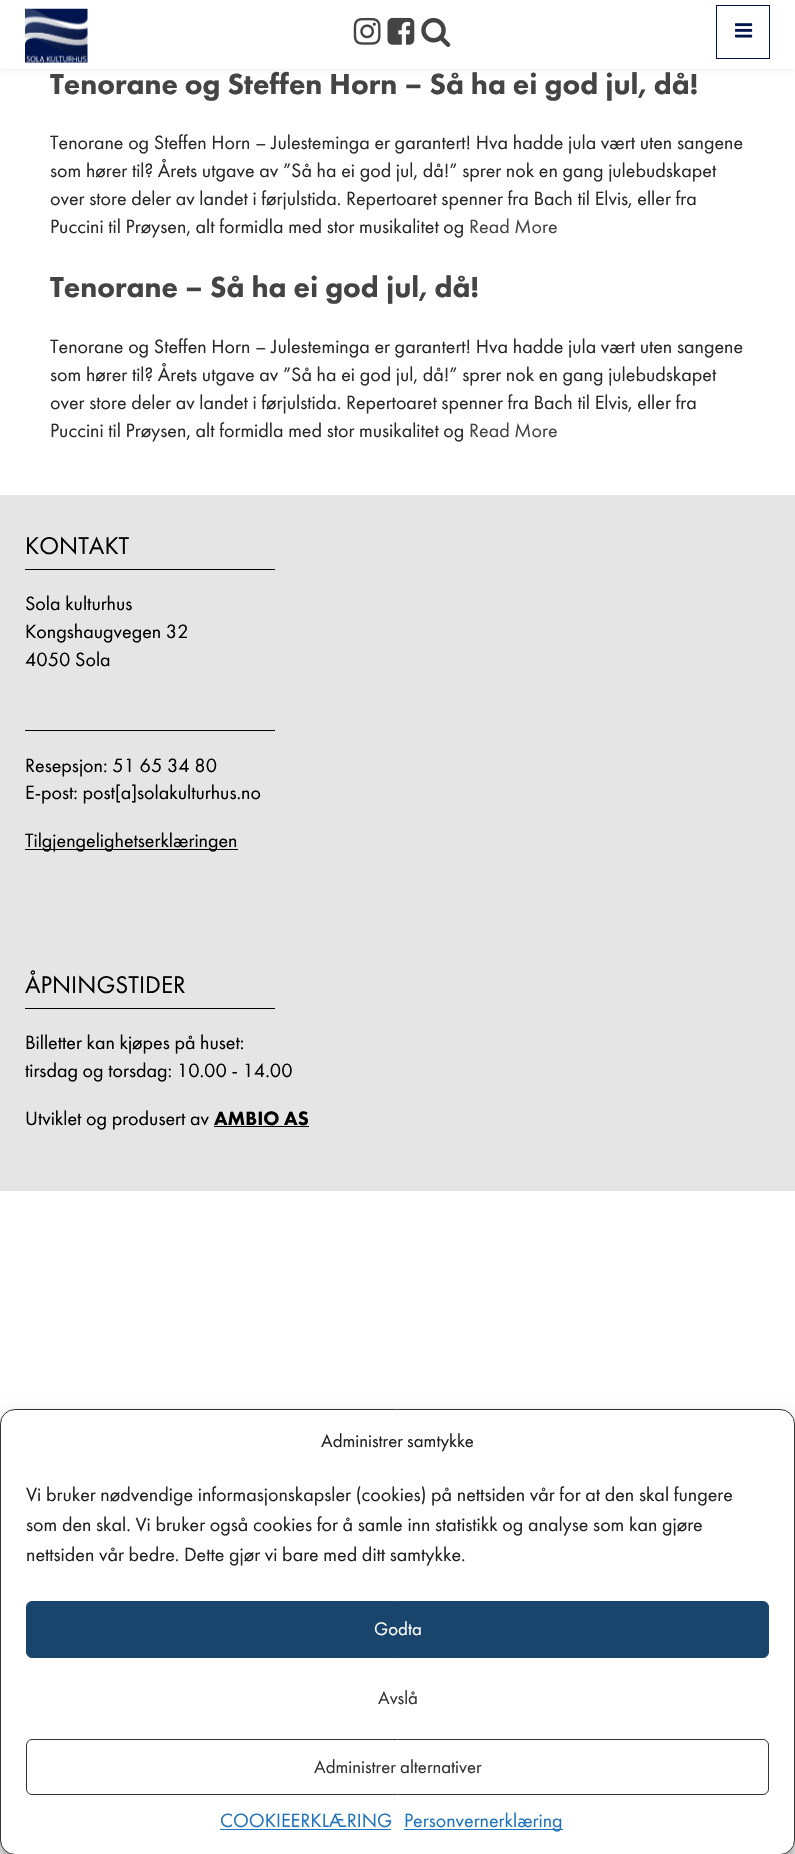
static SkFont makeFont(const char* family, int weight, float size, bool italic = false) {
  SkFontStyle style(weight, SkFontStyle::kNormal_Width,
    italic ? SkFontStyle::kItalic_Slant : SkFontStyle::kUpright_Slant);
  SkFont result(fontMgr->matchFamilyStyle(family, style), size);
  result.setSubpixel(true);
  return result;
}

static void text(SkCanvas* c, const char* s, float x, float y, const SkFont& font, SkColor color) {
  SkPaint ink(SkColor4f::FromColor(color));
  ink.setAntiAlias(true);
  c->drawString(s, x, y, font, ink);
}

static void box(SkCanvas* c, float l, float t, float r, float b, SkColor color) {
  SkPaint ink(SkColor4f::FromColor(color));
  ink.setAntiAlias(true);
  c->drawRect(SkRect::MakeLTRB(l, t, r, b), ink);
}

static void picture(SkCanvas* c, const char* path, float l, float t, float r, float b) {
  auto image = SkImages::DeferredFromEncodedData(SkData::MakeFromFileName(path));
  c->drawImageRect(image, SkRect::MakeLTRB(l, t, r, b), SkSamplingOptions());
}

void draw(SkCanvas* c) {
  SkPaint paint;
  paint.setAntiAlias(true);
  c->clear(0xffffffff);
  paint.setColor(0x0d000000);
  paint.setMaskFilter(SkMaskFilter::MakeBlur(kNormal_SkBlurStyle, 3));
  c->drawRect(SkRect::MakeLTRB(0, 3, 795, 71), paint);
  paint.setMaskFilter(nullptr);
  box(c, 0, 0, 795, 69, 0xffffffff);
  picture(c, "img_01.png", 25, 8, 88, 63);
  picture(c, "img_02.png", 353, 17, 381, 45);
  picture(c, "img_03.png", 387, 17, 415, 45);
  picture(c, "img_04.png", 421, 17, 451, 47);
  paint.setStyle(SkPaint::kStroke_Style);
  paint.setStrokeWidth(1);
  paint.setColor(0xff00154e);
  c->drawRect(SkRect::MakeLTRB(716.5f, 5.5f, 769.5f, 58.5f), paint);
  picture(c, "img_05.png", 735, 23, 753, 38);
  SkFont face1 = makeFont("Futura PT", 900, 30);
  text(c, "Tenorane og Steffen Horn – Så ha ei god jul, då!", 50, 94, face1, 0xff444444);
  SkFont face2 = makeFont("Futura PT", 400, 20);
  text(c, "Tenorane og Steffen Horn – Julesteminga er garantert! Hva hadde jula vært uten sangene", 50, 149, face2, 0xff292929);
  text(c, "som hører til? Årets utgave av ”Så ha ei god jul, då!” sprer nok en gang julebudskapet", 50, 177, face2, 0xff292929);
  text(c, "over store deler av landet i førjulstida. Repertoaret spenner fra Bach til Elvis, eller fra", 50, 205, face2, 0xff292929);
  text(c, "Puccini til Prøysen, alt formidla med stor musikalitet og", 50, 233, face2, 0xff292929);
  text(c, "Read More", 469, 233, face2, 0xff444444);
  text(c, "Tenorane – Så ha ei god jul, då!", 50, 297, face1, 0xff444444);
  text(c, "Tenorane og Steffen Horn – Julesteminga er garantert! Hva hadde jula vært uten sangene", 50, 353, face2, 0xff292929);
  text(c, "som hører til? Årets utgave av ”Så ha ei god jul, då!” sprer nok en gang julebudskapet", 50, 381, face2, 0xff292929);
  text(c, "over store deler av landet i førjulstida. Repertoaret spenner fra Bach til Elvis, eller fra", 50, 409, face2, 0xff292929);
  text(c, "Puccini til Prøysen, alt formidla med stor musikalitet og", 50, 437, face2, 0xff292929);
  text(c, "Read More", 469, 437, face2, 0xff444444);
  box(c, 0, 495, 795, 1191, 0xffe5e5e5);
  box(c, 25, 569, 275, 570, 0xff000000);
  SkFont face3 = makeFont("Futura PT", 400, 25);
  text(c, "KONTAKT", 25, 554, face3, 0xff000000);
  text(c, "Sola kulturhus", 25, 610, face2, 0xff000000);
  text(c, "Kongshaugvegen 32", 25, 638, face2, 0xff000000);
  text(c, "4050 Sola", 25, 666, face2, 0xff000000);
  box(c, 25, 730, 275, 731, 0xff000000);
  text(c, "Resepsjon: 51 65 34 80", 25, 772, face2, 0xff000000);
  text(c, "E-post: post[a]solakulturhus.no", 25, 799, face2, 0xff000000);
  box(c, 25, 849, 238, 850, 0xff000000);
  text(c, "Tilgjengelighetserklæringen", 25, 847, face2, 0xff000000);
  box(c, 25, 1008, 275, 1009, 0xff000000);
  text(c, "ÅPNINGSTIDER", 25, 993, face3, 0xff000000);
  text(c, "Billetter kan kjøpes på huset:", 25, 1049, face2, 0xff000000);
  text(c, "tirsdag og torsdag: 10.00 - 14.00", 25, 1077, face2, 0xff000000);
  text(c, "Utviklet og produsert av", 25, 1125, face2, 0xff000000);
  SkFont face4 = makeFont("Futura PT", 900, 20);
  text(c, "AMBIO AS", 214, 1125, face4, 0xff000000);
  box(c, 214, 1126, 309, 1127, 0xff000000);
  paint.setStyle(SkPaint::kFill_Style);
  paint.setColor(0x3b000000);
  paint.setMaskFilter(SkMaskFilter::MakeBlur(kNormal_SkBlurStyle, 4));
  c->drawRoundRect(SkRect::MakeLTRB(0, 1416, 795, 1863), 15, 15, paint);
  paint.setMaskFilter(nullptr);
  paint.setColor(0x30000000);
  paint.setMaskFilter(SkMaskFilter::MakeBlur(kNormal_SkBlurStyle, 12.5f));
  c->drawRoundRect(SkRect::MakeLTRB(0, 1421, 795, 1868), 15, 15, paint);
  paint.setMaskFilter(nullptr);
  paint.setColor(0xffffffff);
  c->drawRoundRect(SkRect::MakeLTRB(0.5f, 1409.5f, 794.5f, 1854.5f), 14.5f, 14.5f, paint);
  paint.setStyle(SkPaint::kStroke_Style);
  paint.setColor(0xff333333);
  c->drawRoundRect(SkRect::MakeLTRB(0.5f, 1409.5f, 794.5f, 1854.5f), 14.5f, 14.5f, paint);
  SkFont face5 = makeFont("Futura PT", 400, 18.75f);
  text(c, "Administrer samtykke", 321, 1447, face5, 0xff222222);
  text(c, "Vi bruker nødvendige informasjonskapsler (cookies) på nettsiden vår for at den skal fungere", 26, 1501, face2, 0xff222222);
  text(c, "som den skal. Vi bruker også cookies for å samle inn statistikk og analyse som kan gjøre", 26, 1531, face2, 0xff222222);
  text(c, "nettsiden vår bedre. Dette gjør vi bare med ditt samtykke.", 26, 1561, face2, 0xff222222);
  paint.setStyle(SkPaint::kFill_Style);
  paint.setColor(0xff19456c);
  c->drawRoundRect(SkRect::MakeLTRB(26.5f, 1601.5f, 768.5f, 1657.5f), 5.5f, 5.5f, paint);
  paint.setStyle(SkPaint::kStroke_Style);
  c->drawRoundRect(SkRect::MakeLTRB(26.5f, 1601.5f, 768.5f, 1657.5f), 5.5f, 5.5f, paint);
  text(c, "Godta", 374, 1635, face5, 0xffffffff);
  text(c, "Avslå", 378, 1704, face5, 0xff333333);
  paint.setColor(0xff333333);
  c->drawRoundRect(SkRect::MakeLTRB(26.5f, 1739.5f, 768.5f, 1794.5f), 5.5f, 5.5f, paint);
  text(c, "Administrer alternativer", 314, 1773, face5, 0xff333333);
  text(c, "COOKIEERKLÆRING", 220, 1827, face2, 0xff1e73be);
  box(c, 220, 1829, 391, 1830, 0xff1e73be);
  box(c, 404, 1829, 563, 1830, 0xff1e73be);
  text(c, "Personvernerklæring", 404, 1827, face2, 0xff1e73be);
}
